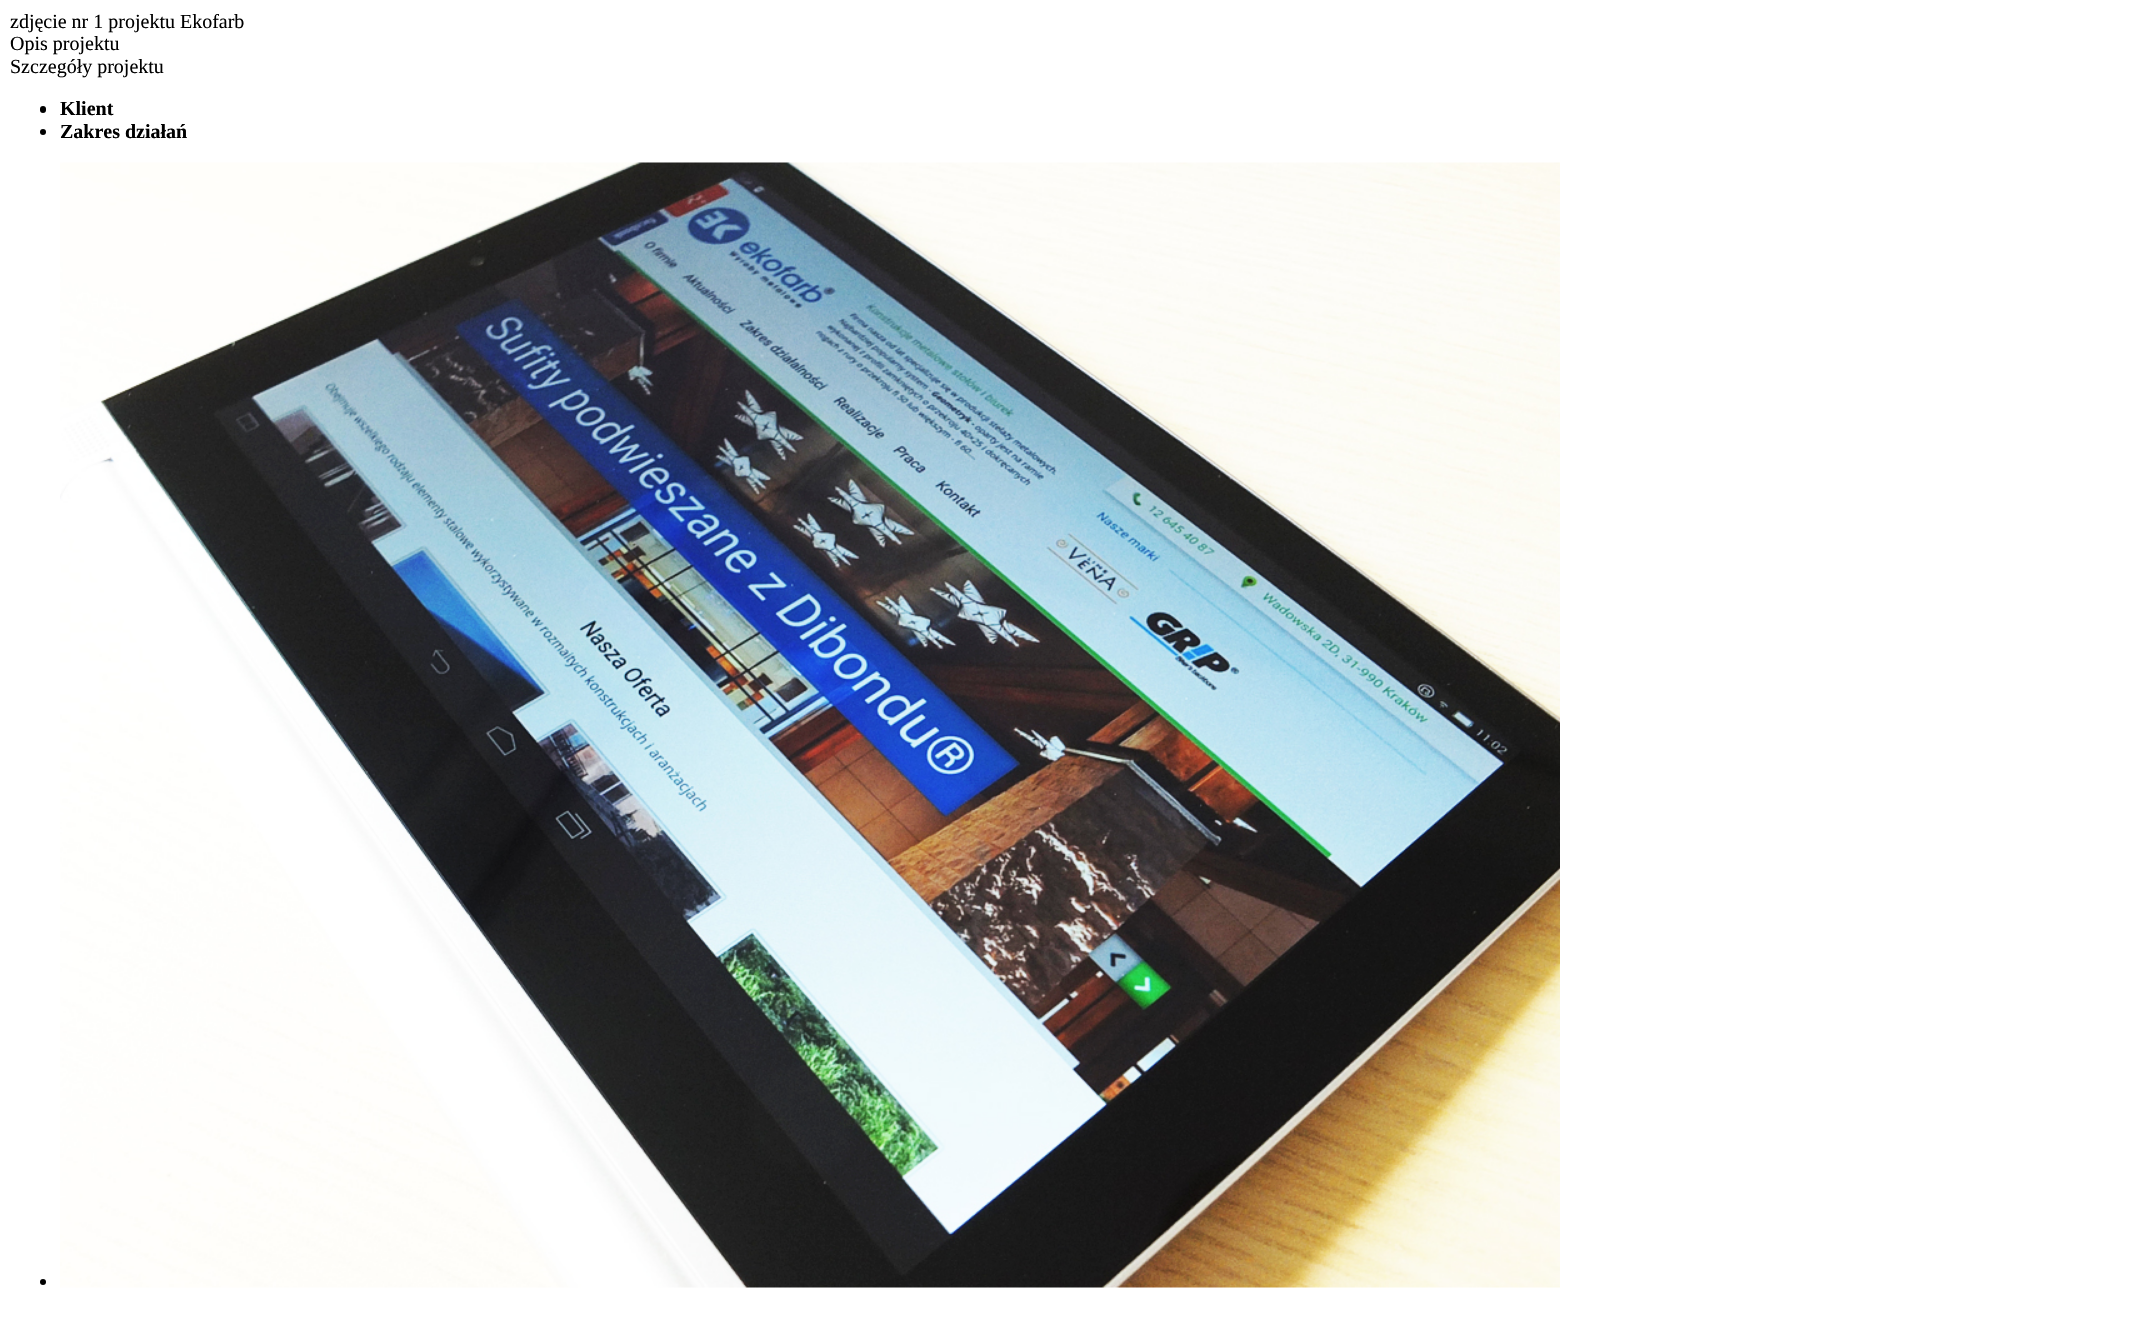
static SkFont makeFont(const char* family, int weight, float size, bool italic = false) {
  SkFontStyle style(weight, SkFontStyle::kNormal_Width,
    italic ? SkFontStyle::kItalic_Slant : SkFontStyle::kUpright_Slant);
  SkFont result(fontMgr->matchFamilyStyle(family, style), size);
  result.setSubpixel(true);
  return result;
}

static void text(SkCanvas* c, const char* s, float x, float y, const SkFont& font, SkColor color) {
  SkPaint ink(SkColor4f::FromColor(color));
  ink.setAntiAlias(true);
  c->drawString(s, x, y, font, ink);
}

static void roundBox(SkCanvas* c, float l, float t, float r, float b, float radius, SkColor color) {
  SkPaint ink(SkColor4f::FromColor(color));
  ink.setAntiAlias(true);
  c->drawRoundRect(SkRect::MakeLTRB(l, t, r, b), radius, radius, ink);
}

static void picture(SkCanvas* c, const char* path, float l, float t, float r, float b) {
  auto image = SkImages::DeferredFromEncodedData(SkData::MakeFromFileName(path));
  c->drawImageRect(image, SkRect::MakeLTRB(l, t, r, b), SkSamplingOptions());
}

void draw(SkCanvas* c) {
  SkPaint paint;
  paint.setAntiAlias(true);
  c->clear(0xffffffff);
  SkFont face1 = makeFont("Liberation Serif", 400, 20);
  text(c, "zdjęcie nr 1 projektu Ekofarb", 10, 28, face1, 0xff000000);
  text(c, "Opis projektu", 10, 50, face1, 0xff000000);
  text(c, "Szczegóły projektu", 10, 73, face1, 0xff000000);
  roundBox(c, 40, 106, 46, 113, 3, 0xff000000);
  SkFont face2 = makeFont("Liberation Serif", 700, 20);
  text(c, "Klient", 60, 115, face2, 0xff000000);
  paint.setColor(0xff000000);
  c->drawCircle(43, 132, 3, paint);
  text(c, "Zakres działań", 60, 138, face2, 0xff000000);
  c->drawCircle(43, 1282, 3, paint);
  picture(c, "img_01.png", 60, 162, 1560, 1288);
}
